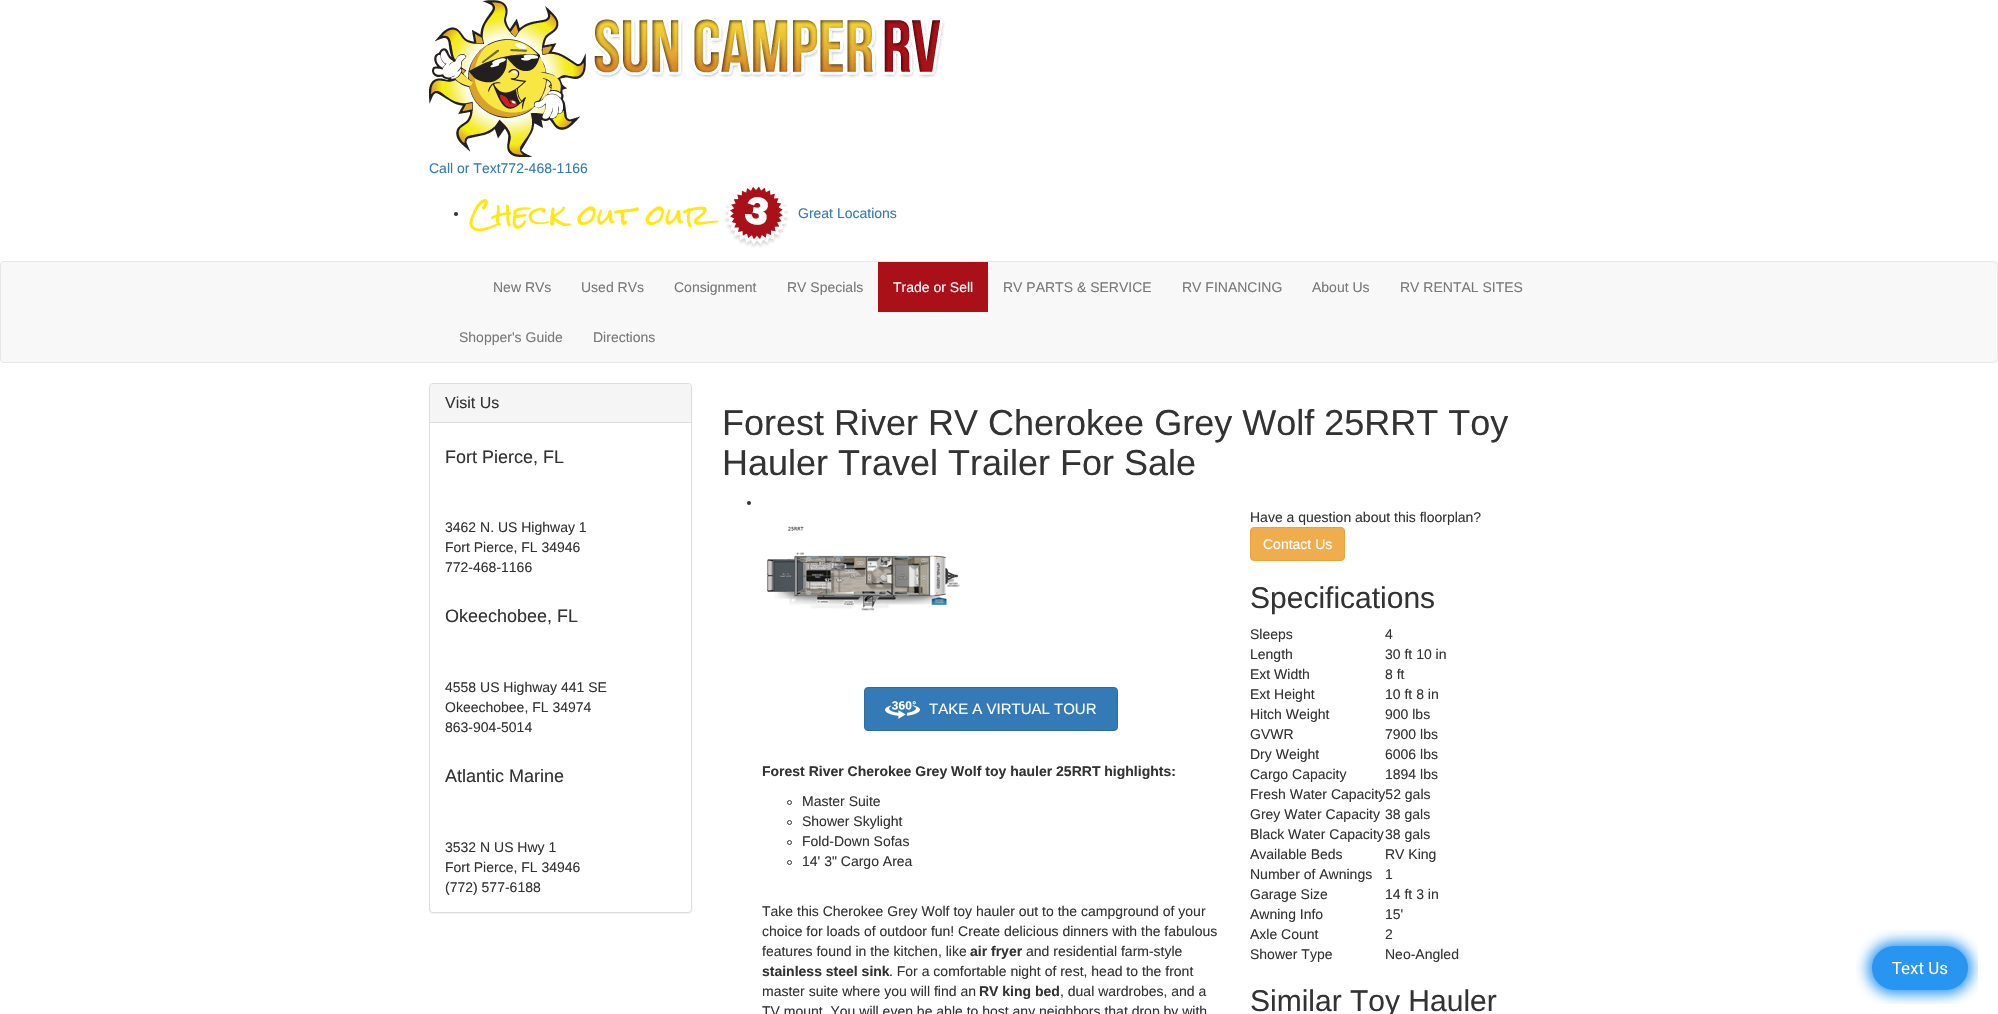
static SkFont makeFont(const char* family, int weight, float size, bool italic = false) {
  SkFontStyle style(weight, SkFontStyle::kNormal_Width,
    italic ? SkFontStyle::kItalic_Slant : SkFontStyle::kUpright_Slant);
  SkFont result(fontMgr->matchFamilyStyle(family, style), size);
  result.setSubpixel(true);
  return result;
}

static void text(SkCanvas* c, const char* s, float x, float y, const SkFont& font, SkColor color) {
  SkPaint ink(SkColor4f::FromColor(color));
  ink.setAntiAlias(true);
  c->drawString(s, x, y, font, ink);
}

static void box(SkCanvas* c, float l, float t, float r, float b, SkColor color) {
  SkPaint ink(SkColor4f::FromColor(color));
  ink.setAntiAlias(true);
  c->drawRect(SkRect::MakeLTRB(l, t, r, b), ink);
}

static void picture(SkCanvas* c, const char* path, float l, float t, float r, float b) {
  auto image = SkImages::DeferredFromEncodedData(SkData::MakeFromFileName(path));
  c->drawImageRect(image, SkRect::MakeLTRB(l, t, r, b), SkSamplingOptions());
}

void draw(SkCanvas* c) {
  SkPaint paint;
  paint.setAntiAlias(true);
  c->clear(0xffffffff);
  picture(c, "img_01.png", 429, 0, 945, 158);
  SkFont face1 = makeFont("Liberation Sans", 400, 14);
  text(c, "Call or Text772-468-1166", 429, 173, face1, 0xff337ab7);
  paint.setColor(0xff333333);
  c->drawCircle(456, 214, 2, paint);
  picture(c, "img_02.png", 469, 199, 719, 232);
  picture(c, "img_03.png", 724, 186, 789, 248);
  text(c, "Great Locations", 798, 218, face1, 0xff337ab7);
  paint.setColor(0xfff8f8f8);
  c->drawRoundRect(SkRect::MakeLTRB(0.5f, 261.5f, 1997.5f, 362.5f), 3.5f, 3.5f, paint);
  paint.setStyle(SkPaint::kStroke_Style);
  paint.setStrokeWidth(1);
  paint.setColor(0xffe7e7e7);
  c->drawRoundRect(SkRect::MakeLTRB(0.5f, 261.5f, 1997.5f, 362.5f), 3.5f, 3.5f, paint);
  text(c, "New RVs", 493, 292, face1, 0xff777777);
  text(c, "Used RVs", 581, 292, face1, 0xff777777);
  text(c, "Consignment", 674, 292, face1, 0xff777777);
  text(c, "RV Specials", 787, 292, face1, 0xff777777);
  box(c, 878, 262, 988, 312, 0xffaa1017);
  text(c, "Trade or Sell", 893, 292, face1, 0xffffffff);
  text(c, "RV PARTS & SERVICE", 1003, 292, face1, 0xff777777);
  text(c, "RV FINANCING", 1182, 292, face1, 0xff777777);
  text(c, "About Us", 1312, 292, face1, 0xff777777);
  text(c, "RV RENTAL SITES", 1400, 292, face1, 0xff777777);
  text(c, "Shopper's Guide", 459, 342, face1, 0xff777777);
  text(c, "Directions", 593, 342, face1, 0xff777777);
  paint.setStyle(SkPaint::kFill_Style);
  paint.setColor(0x0d000000);
  paint.setMaskFilter(SkMaskFilter::MakeBlur(kNormal_SkBlurStyle, 0.5f));
  c->drawRoundRect(SkRect::MakeLTRB(429, 384, 692, 914), 4, 4, paint);
  paint.setMaskFilter(nullptr);
  paint.setColor(0xffffffff);
  c->drawRoundRect(SkRect::MakeLTRB(429.5f, 383.5f, 691.5f, 912.5f), 3.5f, 3.5f, paint);
  paint.setStyle(SkPaint::kStroke_Style);
  paint.setColor(0xffdddddd);
  c->drawRoundRect(SkRect::MakeLTRB(429.5f, 383.5f, 691.5f, 912.5f), 3.5f, 3.5f, paint);
  paint.setStyle(SkPaint::kFill_Style);
  paint.setColor(0xfff5f5f5);
  c->drawPath(SkPathBuilder().moveTo(433, 384).lineTo(688, 384).cubicTo(689.5f, 384, 691, 385.5f, 691, 387).lineTo(691, 423).lineTo(430, 423).lineTo(430, 387).cubicTo(430, 385.5f, 431.5f, 384, 433, 384).close().detach(), paint);
  box(c, 430, 422, 691, 423, 0xffdddddd);
  SkFont face2 = makeFont("Liberation Sans", 400, 16);
  text(c, "Visit Us", 445, 408, face2, 0xff333333);
  SkFont face3 = makeFont("Liberation Sans", 400, 18);
  text(c, "Fort Pierce, FL", 445, 463, face3, 0xff333333);
  text(c, "3462 N. US Highway 1", 445, 532, face1, 0xff333333);
  text(c, "Fort Pierce, FL 34946", 445, 552, face1, 0xff333333);
  text(c, "772-468-1166", 445, 572, face1, 0xff333333);
  text(c, "Okeechobee, FL", 445, 622, face3, 0xff333333);
  text(c, "4558 US Highway 441 SE", 445, 692, face1, 0xff333333);
  text(c, "Okeechobee, FL 34974", 445, 712, face1, 0xff333333);
  text(c, "863-904-5014", 445, 732, face1, 0xff333333);
  text(c, "Atlantic Marine", 445, 782, face3, 0xff333333);
  text(c, "3532 N US Hwy 1", 445, 852, face1, 0xff333333);
  text(c, "Fort Pierce, FL 34946", 445, 872, face1, 0xff333333);
  text(c, "(772) 577-6188", 445, 892, face1, 0xff333333);
  SkFont face4 = makeFont("Liberation Sans", 400, 36);
  text(c, "Forest River RV Cherokee Grey Wolf 25RRT Toy", 722, 435, face4, 0xff333333);
  text(c, "Hauler Travel Trailer For Sale", 722, 475, face4, 0xff333333);
  paint.setColor(0xff333333);
  c->drawCircle(749, 503, 2, paint);
  picture(c, "img_04.png", 767, 526, 960, 611);
  paint.setColor(0xff337ab7);
  c->drawRoundRect(SkRect::MakeLTRB(864.5f, 687.5f, 1117.5f, 730.5f), 3.5f, 3.5f, paint);
  paint.setStyle(SkPaint::kStroke_Style);
  paint.setColor(0xff2e6da4);
  c->drawRoundRect(SkRect::MakeLTRB(864.5f, 687.5f, 1117.5f, 730.5f), 3.5f, 3.5f, paint);
  picture(c, "img_05.png", 885, 701, 920, 719);
  SkFont face5 = makeFont("Liberation Sans", 400, 15);
  text(c, "TAKE A VIRTUAL TOUR", 929, 714, face5, 0xffffffff);
  SkFont face6 = makeFont("Liberation Sans", 700, 14);
  text(c, "Forest River Cherokee Grey Wolf toy hauler 25RRT highlights:", 762, 776, face6, 0xff333333);
  paint.setColor(0xff333333);
  c->drawCircle(789.5f, 802.5f, 2, paint);
  text(c, "Master Suite", 802, 806, face1, 0xff333333);
  c->drawCircle(789.5f, 822.5f, 2, paint);
  text(c, "Shower Skylight", 802, 826, face1, 0xff333333);
  c->drawCircle(789.5f, 842.5f, 2, paint);
  text(c, "Fold-Down Sofas", 802, 846, face1, 0xff333333);
  c->drawCircle(789.5f, 862.5f, 2, paint);
  text(c, "14' 3\" Cargo Area", 802, 866, face1, 0xff333333);
  text(c, "Take this Cherokee Grey Wolf toy hauler out to the campground of your", 762, 916, face1, 0xff333333);
  text(c, "choice for loads of outdoor fun! Create delicious dinners with the fabulous", 762, 936, face1, 0xff333333);
  text(c, "features found in the kitchen, like", 762, 956, face1, 0xff333333);
  text(c, "air fryer", 970, 956, face6, 0xff333333);
  text(c, "and residential farm-style", 1026, 956, face1, 0xff333333);
  text(c, "stainless steel sink", 762, 976, face6, 0xff333333);
  text(c, ". For a comfortable night of rest, head to the front", 889, 976, face1, 0xff333333);
  text(c, "master suite where you will find an", 762, 996, face1, 0xff333333);
  text(c, "RV king bed", 979, 996, face6, 0xff333333);
  text(c, ", dual wardrobes, and a", 1060, 996, face1, 0xff333333);
  text(c, "TV mount. You will even be able to host any neighbors that drop by with", 762, 1016, face1, 0xff333333);
  text(c, "Have a question about this floorplan?", 1250, 522, face1, 0xff333333);
  paint.setStyle(SkPaint::kFill_Style);
  paint.setColor(0xfff0ad4e);
  c->drawRoundRect(SkRect::MakeLTRB(1250.5f, 527.5f, 1344.5f, 560.5f), 3.5f, 3.5f, paint);
  paint.setStyle(SkPaint::kStroke_Style);
  paint.setColor(0xffeea236);
  c->drawRoundRect(SkRect::MakeLTRB(1250.5f, 527.5f, 1344.5f, 560.5f), 3.5f, 3.5f, paint);
  text(c, "Contact Us", 1263, 549, face1, 0xffffffff);
  SkFont face7 = makeFont("Liberation Sans", 400, 30);
  text(c, "Specifications", 1250, 608, face7, 0xff333333);
  text(c, "Sleeps", 1250, 639, face1, 0xff333333);
  text(c, "4", 1385, 639, face1, 0xff333333);
  text(c, "Length", 1250, 659, face1, 0xff333333);
  text(c, "30 ft 10 in", 1385, 659, face1, 0xff333333);
  text(c, "Ext Width", 1250, 679, face1, 0xff333333);
  text(c, "8 ft", 1385, 679, face1, 0xff333333);
  text(c, "Ext Height", 1250, 699, face1, 0xff333333);
  text(c, "10 ft 8 in", 1385, 699, face1, 0xff333333);
  text(c, "Hitch Weight", 1250, 719, face1, 0xff333333);
  text(c, "900 lbs", 1385, 719, face1, 0xff333333);
  text(c, "GVWR", 1250, 739, face1, 0xff333333);
  text(c, "7900 lbs", 1385, 739, face1, 0xff333333);
  text(c, "Dry Weight", 1250, 759, face1, 0xff333333);
  text(c, "6006 lbs", 1385, 759, face1, 0xff333333);
  text(c, "Cargo Capacity", 1250, 779, face1, 0xff333333);
  text(c, "1894 lbs", 1385, 779, face1, 0xff333333);
  text(c, "Fresh Water Capacity52 gals", 1250, 799, face1, 0xff333333);
  text(c, "Grey Water Capacity", 1250, 819, face1, 0xff333333);
  text(c, "38 gals", 1385, 819, face1, 0xff333333);
  text(c, "Black Water Capacity", 1250, 839, face1, 0xff333333);
  text(c, "38 gals", 1385, 839, face1, 0xff333333);
  text(c, "Available Beds", 1250, 859, face1, 0xff333333);
  text(c, "RV King", 1385, 859, face1, 0xff333333);
  text(c, "Number of Awnings", 1250, 879, face1, 0xff333333);
  text(c, "1", 1385, 879, face1, 0xff333333);
  text(c, "Garage Size", 1250, 899, face1, 0xff333333);
  text(c, "14 ft 3 in", 1385, 899, face1, 0xff333333);
  text(c, "Awning Info", 1250, 919, face1, 0xff333333);
  text(c, "15'", 1385, 919, face1, 0xff333333);
  text(c, "Axle Count", 1250, 939, face1, 0xff333333);
  text(c, "2", 1385, 939, face1, 0xff333333);
  text(c, "Shower Type", 1250, 959, face1, 0xff333333);
  text(c, "Neo-Angled", 1385, 959, face1, 0xff333333);
  text(c, "Similar Toy Hauler", 1250, 1011, face7, 0xff333333);
  picture(c, "img_06.png", 1856, 930, 1978, 1004);
}
